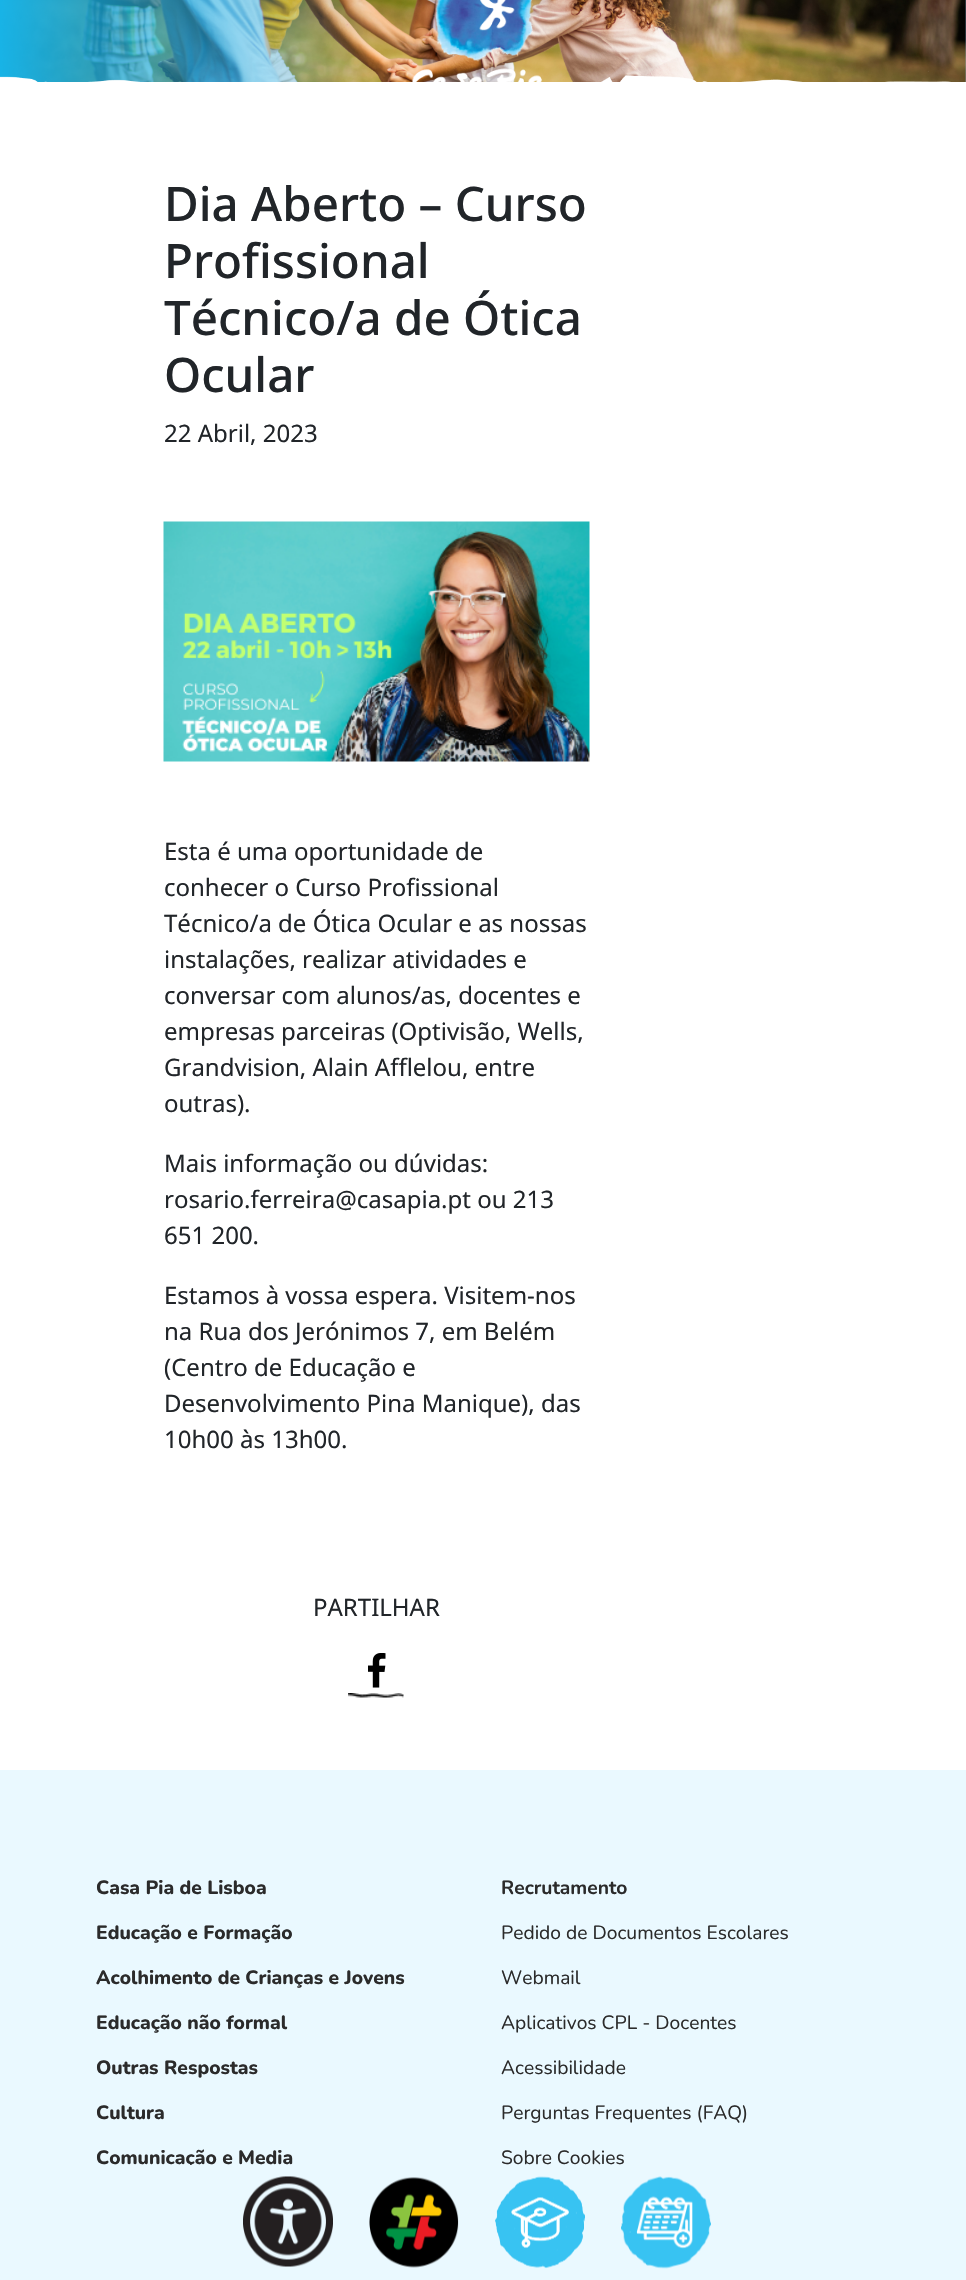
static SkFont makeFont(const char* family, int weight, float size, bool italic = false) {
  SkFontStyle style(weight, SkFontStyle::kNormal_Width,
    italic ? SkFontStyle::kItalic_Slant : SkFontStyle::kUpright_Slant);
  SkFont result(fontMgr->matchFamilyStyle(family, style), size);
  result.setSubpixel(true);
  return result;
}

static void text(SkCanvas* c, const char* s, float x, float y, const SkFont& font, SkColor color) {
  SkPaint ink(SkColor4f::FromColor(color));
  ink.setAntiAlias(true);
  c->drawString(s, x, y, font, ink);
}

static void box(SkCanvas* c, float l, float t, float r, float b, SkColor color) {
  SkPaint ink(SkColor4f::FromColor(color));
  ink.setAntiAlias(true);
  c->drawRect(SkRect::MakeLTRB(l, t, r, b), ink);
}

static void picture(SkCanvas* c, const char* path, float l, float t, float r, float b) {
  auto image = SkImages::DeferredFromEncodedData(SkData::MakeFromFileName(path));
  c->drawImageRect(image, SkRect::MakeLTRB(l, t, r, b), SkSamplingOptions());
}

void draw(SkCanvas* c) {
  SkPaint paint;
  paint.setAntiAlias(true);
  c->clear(0xffffffff);
  picture(c, "img_06.png", 0, 0, 966, 82);
  picture(c, "img_01.png", 412, 0, 542, 82);
  box(c, 0, 1770, 966, 2165, 0xffeaf9ff);
  SkFont face1 = makeFont("Nunito", 800, 19.25f);
  text(c, "Comunicação e Media", 96, 2164, face1, 0xff2b2b2b);
  box(c, 0, 2165, 966, 2280, 0xffeaf9ff);
  picture(c, "img_02.png", 243, 2176, 333, 2267);
  picture(c, "img_03.png", 369, 2177, 459, 2268);
  picture(c, "img_04.png", 495, 2176, 585, 2269);
  picture(c, "img_05.png", 621, 2176, 711, 2269);
  SkFont face2 = makeFont("Noto Sans", 500, 47.5f);
  text(c, "Dia Aberto – Curso", 164, 221, face2, 0xff212529);
  text(c, "Profissional", 164, 278, face2, 0xff212529);
  text(c, "Técnico/a de Ótica", 164, 335, face2, 0xff212529);
  text(c, "Ocular", 164, 392, face2, 0xff212529);
  SkFont face3 = makeFont("Noto Sans", 400, 24);
  text(c, "22 Abril, 2023", 164, 442, face3, 0xff212529);
  picture(c, "img_07.png", 163, 521, 590, 762);
  text(c, "Esta é uma oportunidade de", 164, 860, face3, 0xff212529);
  text(c, "conhecer o Curso Profissional", 164, 896, face3, 0xff212529);
  text(c, "Técnico/a de Ótica Ocular e as nossas", 164, 932, face3, 0xff212529);
  text(c, "instalações, realizar atividades e", 164, 968, face3, 0xff212529);
  text(c, "conversar com alunos/as, docentes e", 164, 1004, face3, 0xff212529);
  text(c, "empresas parceiras (Optivisão, Wells,", 164, 1040, face3, 0xff212529);
  text(c, "Grandvision, Alain Afflelou, entre", 164, 1076, face3, 0xff212529);
  text(c, "outras).", 164, 1112, face3, 0xff212529);
  text(c, "Mais informação ou dúvidas:", 164, 1172, face3, 0xff212529);
  text(c, "rosario.ferreira@casapia.pt ou 213", 164, 1208, face3, 0xff212529);
  text(c, "651 200.", 164, 1244, face3, 0xff212529);
  text(c, "Estamos à vossa espera. Visitem-nos", 164, 1304, face3, 0xff212529);
  text(c, "na Rua dos Jerónimos 7, em Belém", 164, 1340, face3, 0xff212529);
  text(c, "(Centro de Educação e", 164, 1376, face3, 0xff212529);
  text(c, "Desenvolvimento Pina Manique), das", 164, 1412, face3, 0xff212529);
  text(c, "10h00 às 13h00.", 164, 1448, face3, 0xff212529);
  text(c, "PARTILHAR", 313, 1616, face3, 0xff212529);
  picture(c, "img_08.png", 368, 1653, 386, 1688);
  picture(c, "img_09.png", 348, 1693, 404, 1698);
  text(c, "Casa Pia de Lisboa", 96, 1894, face1, 0xff2b2b2b);
  text(c, "Educação e Formação", 96, 1939, face1, 0xff2b2b2b);
  text(c, "Acolhimento de Crianças e Jovens", 96, 1984, face1, 0xff2b2b2b);
  text(c, "Educação não formal", 96, 2029, face1, 0xff2b2b2b);
  text(c, "Outras Respostas", 96, 2074, face1, 0xff2b2b2b);
  text(c, "Cultura", 96, 2119, face1, 0xff2b2b2b);
  SkFont face4 = makeFont("Nunito", 700, 19.25f);
  text(c, "Recrutamento", 501, 1894, face4, 0xff2b2b2b);
  SkFont face5 = makeFont("Nunito", 400, 19.25f);
  text(c, "Pedido de Documentos Escolares", 501, 1939, face5, 0xff2b2b2b);
  text(c, "Webmail", 501, 1984, face5, 0xff2b2b2b);
  text(c, "Aplicativos CPL - Docentes", 501, 2029, face5, 0xff2b2b2b);
  text(c, "Acessibilidade", 501, 2074, face5, 0xff2b2b2b);
  text(c, "Perguntas Frequentes (FAQ)", 501, 2119, face5, 0xff2b2b2b);
  text(c, "Sobre Cookies", 501, 2164, face5, 0xff2b2b2b);
}
